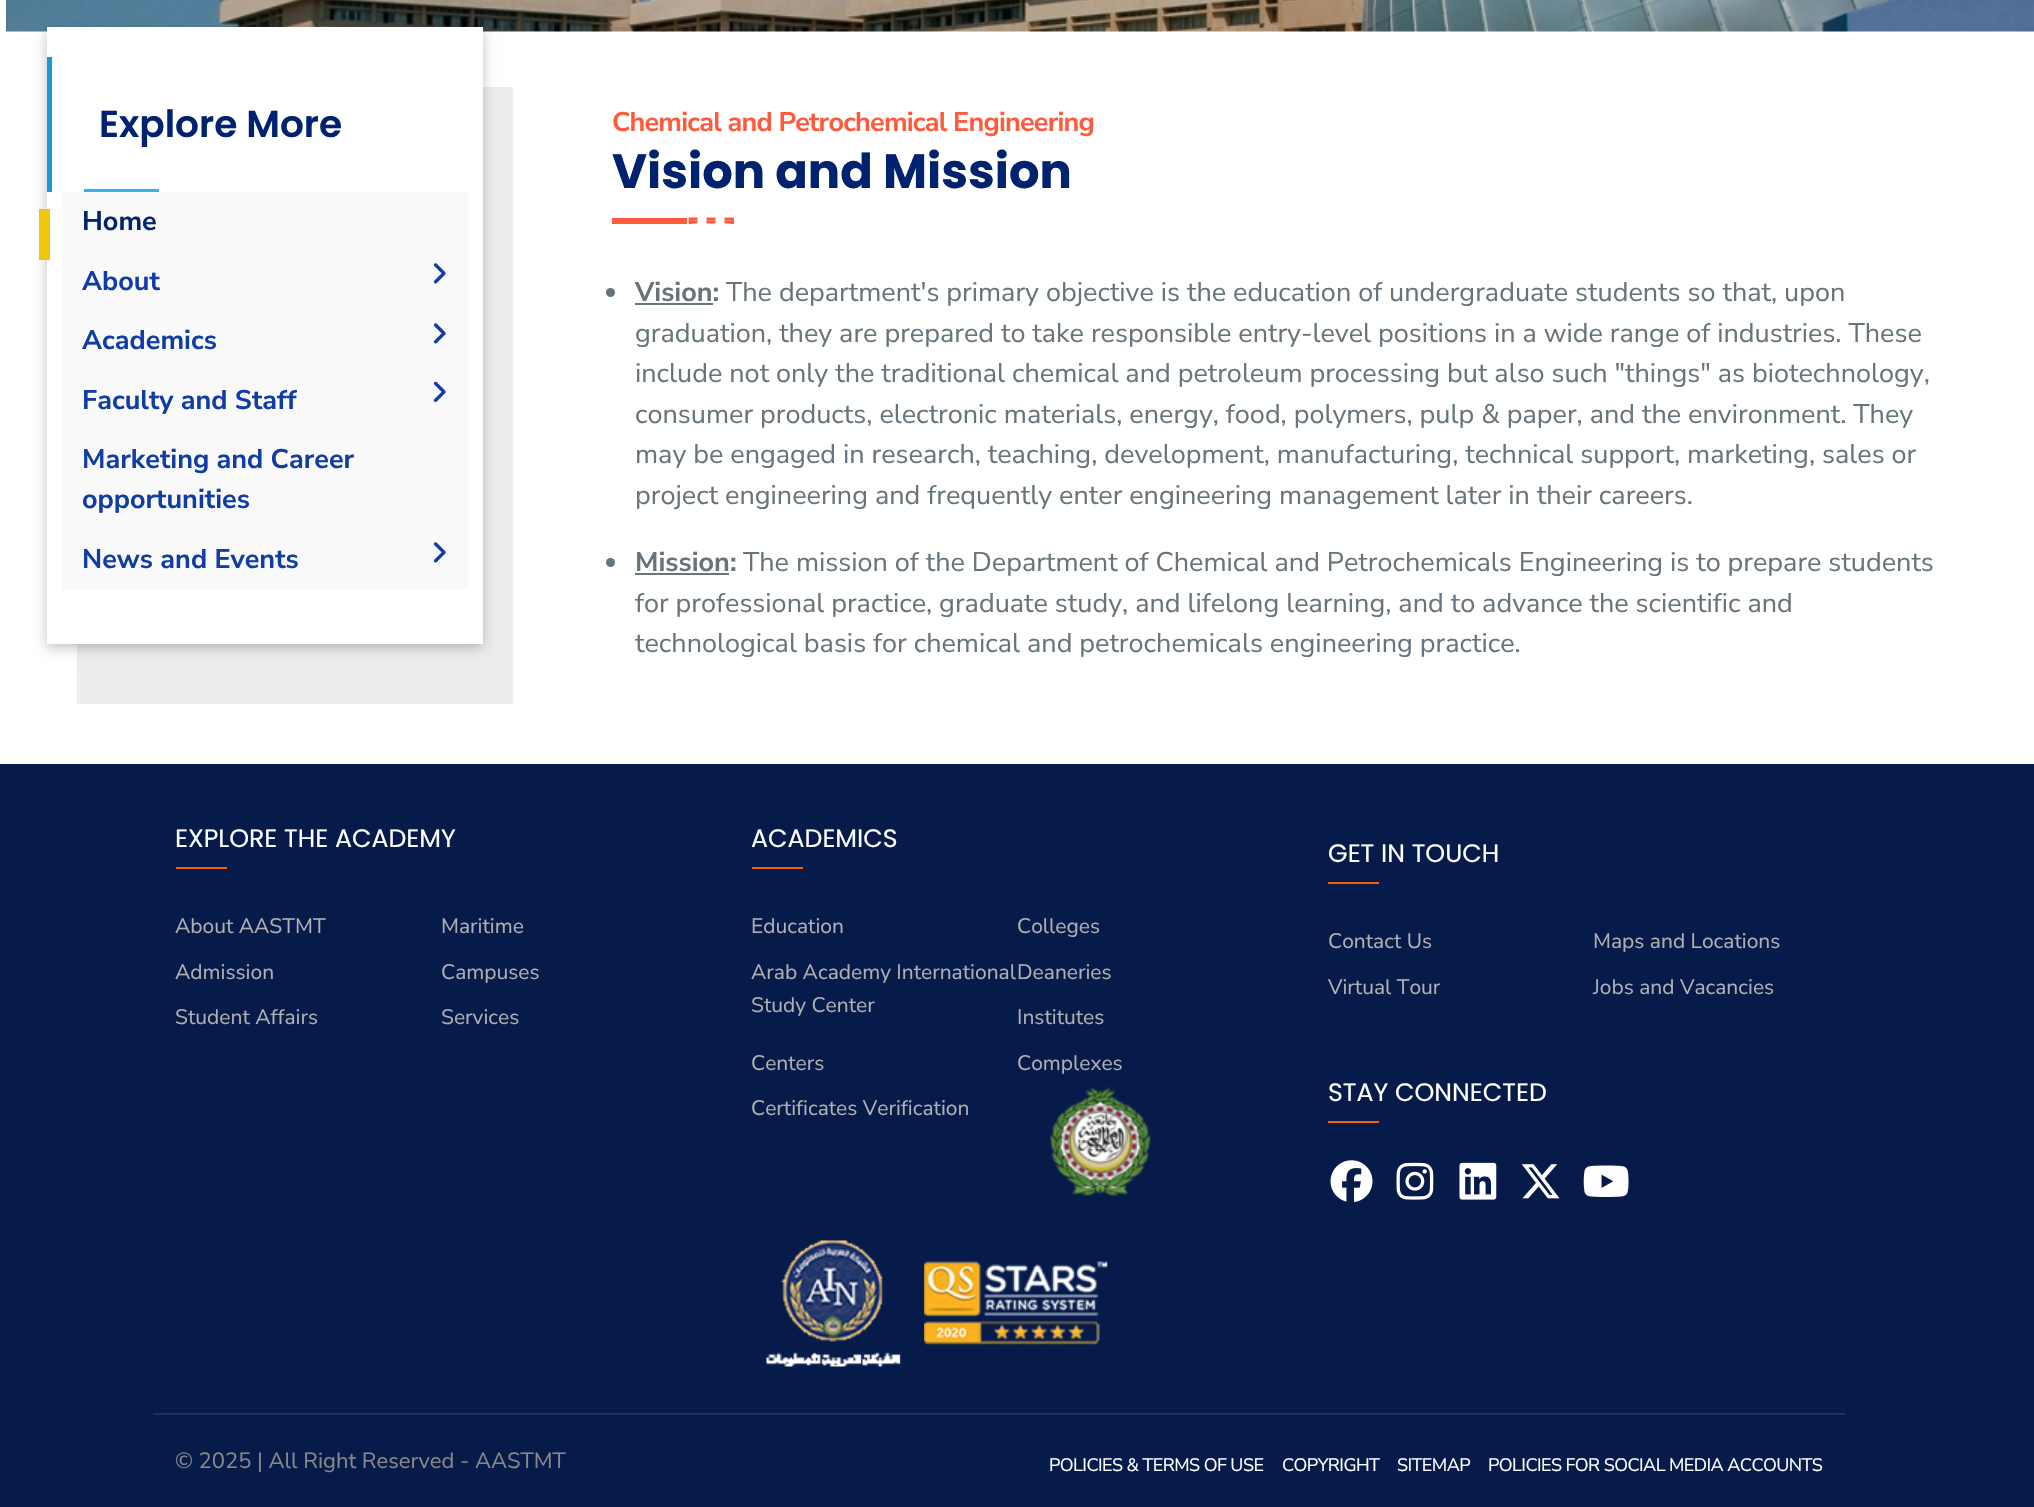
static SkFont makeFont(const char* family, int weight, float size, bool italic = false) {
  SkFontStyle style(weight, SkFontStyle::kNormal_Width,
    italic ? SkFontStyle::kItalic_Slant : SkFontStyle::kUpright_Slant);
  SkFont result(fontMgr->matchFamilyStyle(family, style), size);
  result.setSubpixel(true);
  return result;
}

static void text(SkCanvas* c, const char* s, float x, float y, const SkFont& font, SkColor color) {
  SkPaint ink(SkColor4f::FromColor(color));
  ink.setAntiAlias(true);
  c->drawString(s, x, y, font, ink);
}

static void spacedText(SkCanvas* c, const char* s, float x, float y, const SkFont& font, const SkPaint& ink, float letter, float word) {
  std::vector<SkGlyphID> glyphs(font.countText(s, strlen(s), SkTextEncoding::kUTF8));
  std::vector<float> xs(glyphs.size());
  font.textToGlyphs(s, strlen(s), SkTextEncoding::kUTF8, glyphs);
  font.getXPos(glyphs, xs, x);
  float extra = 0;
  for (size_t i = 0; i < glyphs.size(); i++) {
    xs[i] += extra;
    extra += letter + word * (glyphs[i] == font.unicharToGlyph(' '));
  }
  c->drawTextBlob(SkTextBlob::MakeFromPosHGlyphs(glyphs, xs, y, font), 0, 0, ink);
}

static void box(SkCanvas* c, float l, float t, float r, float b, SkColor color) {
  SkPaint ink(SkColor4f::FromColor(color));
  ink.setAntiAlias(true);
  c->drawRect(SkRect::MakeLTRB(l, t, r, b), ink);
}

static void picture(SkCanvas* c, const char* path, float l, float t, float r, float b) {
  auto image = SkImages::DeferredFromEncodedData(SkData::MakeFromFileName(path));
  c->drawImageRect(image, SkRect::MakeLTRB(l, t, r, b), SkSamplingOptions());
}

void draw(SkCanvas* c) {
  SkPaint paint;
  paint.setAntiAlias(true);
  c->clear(0xffffffff);
  picture(c, "img_01.png", 6, 0, 2034, 32);
  box(c, 77, 87, 513, 704, 0xffededef);
  paint.setColor(0x3d000000);
  paint.setMaskFilter(SkMaskFilter::MakeBlur(kNormal_SkBlurStyle, 6));
  c->drawRect(SkRect::MakeLTRB(47, 32, 483, 648), paint);
  paint.setMaskFilter(nullptr);
  box(c, 47, 27, 483, 644, 0xffffffff);
  box(c, 47, 57, 52, 192, 0xff1699d5);
  SkFont face1 = makeFont("Poppins", 600, 37.5f);
  text(c, "Explore More", 99, 137, face1, 0xff00226f);
  box(c, 84, 189, 159, 192, 0xff37b1e9);
  box(c, 39, 209, 50, 260, 0xfff1c50e);
  box(c, 62, 192, 468, 590, 0xfff9f9f9);
  SkFont face2 = makeFont("Nunito Sans", 700, 27);
  text(c, "Home", 82, 230, face2, 0xff00226f);
  text(c, "About", 82, 290, face2, 0xff0f3da3);
  picture(c, "img_02.png", 433, 263, 446, 284);
  text(c, "Academics", 82, 349, face2, 0xff0f3da3);
  picture(c, "img_02.png", 433, 323, 446, 344);
  text(c, "Faculty and Staff", 82, 409, face2, 0xff0f3da3);
  picture(c, "img_03.png", 433, 381, 446, 402);
  text(c, "Marketing and Career", 82, 468, face2, 0xff0f3da3);
  text(c, "opportunities", 82, 508, face2, 0xff0f3da3);
  text(c, "News and Events", 82, 568, face2, 0xff0f3da3);
  picture(c, "img_02.png", 433, 542, 446, 563);
  paint.setColor(0xffff5a3c);
  spacedText(c, "Chemical and Petrochemical Engineering", 612, 131, face2, paint, -0.8f, 0);
  SkFont face3 = makeFont("Poppins", 700, 48);
  text(c, "Vision and Mission", 612, 188, face3, 0xff00226f);
  box(c, 612, 218, 687, 224, 0xffff5a3c);
  paint.setStyle(SkPaint::kStroke_Style);
  paint.setStrokeWidth(3);
  c->drawPath(SkPathBuilder().moveTo(688.5f, 219).lineTo(697.5f, 219).moveTo(706.5f, 219).lineTo(715.5f, 219).moveTo(724.5f, 219).lineTo(733.5f, 219).detach(), paint);
  box(c, 731, 218, 734, 224, 0xffff5a3c);
  c->drawPath(SkPathBuilder().moveTo(688.5f, 222).lineTo(697.5f, 222).moveTo(706.5f, 222).lineTo(715.5f, 222).moveTo(724.5f, 222).lineTo(733.5f, 222).detach(), paint);
  box(c, 689, 218, 692, 224, 0xffff5a3c);
  paint.setStyle(SkPaint::kFill_Style);
  paint.setColor(0xff67747b);
  c->drawCircle(610.5f, 292.5f, 4.5f, paint);
  text(c, "Vision:", 635, 301, face2, 0xff67747b);
  box(c, 635, 303, 713, 305, 0xff67747b);
  SkFont face4 = makeFont("Nunito Sans", 400, 27);
  text(c, "The department's primary objective is the education of undergraduate students so that, upon", 726, 301, face4, 0xff67747b);
  text(c, "graduation, they are prepared to take responsible entry-level positions in a wide range of industries. These", 635, 342, face4, 0xff67747b);
  text(c, "include not only the traditional chemical and petroleum processing but also such \"things\" as biotechnology,", 635, 382, face4, 0xff67747b);
  text(c, "consumer products, electronic materials, energy, food, polymers, pulp & paper, and the environment. They", 635, 423, face4, 0xff67747b);
  text(c, "may be engaged in research, teaching, development, manufacturing, technical support, marketing, sales or", 635, 463, face4, 0xff67747b);
  text(c, "project engineering and frequently enter engineering management later in their careers.", 635, 504, face4, 0xff67747b);
  c->drawCircle(610.5f, 562.5f, 4.5f, paint);
  text(c, "Mission:", 635, 571, face2, 0xff67747b);
  box(c, 635, 573, 729, 575, 0xff67747b);
  text(c, "The mission of the Department of Chemical and Petrochemicals Engineering is to prepare students", 743, 571, face4, 0xff67747b);
  text(c, "for professional practice, graduate study, and lifelong learning, and to advance the scientific and", 635, 612, face4, 0xff67747b);
  text(c, "technological basis for chemical and petrochemicals engineering practice.", 635, 652, face4, 0xff67747b);
  box(c, 0, 764, 2034, 1507, 0xff061b49);
  SkFont face5 = makeFont("Poppins", 400, 25.25f);
  text(c, "EXPLORE THE ACADEMY", 175, 847, face5, 0xffffffff);
  box(c, 176, 867, 227, 869, 0xfffe5a0e);
  SkFont face6 = makeFont("Nunito Sans", 400, 21);
  text(c, "About AASTMT", 175, 933, face6, 0xffaeb0b3);
  text(c, "Maritime", 441, 933, face6, 0xffaeb0b3);
  text(c, "Admission", 175, 979, face6, 0xffaeb0b3);
  text(c, "Campuses", 441, 979, face6, 0xffaeb0b3);
  text(c, "Student Affairs", 175, 1024, face6, 0xffaeb0b3);
  text(c, "Services", 441, 1024, face6, 0xffaeb0b3);
  text(c, "ACADEMICS", 751, 847, face5, 0xffffffff);
  box(c, 752, 867, 803, 869, 0xfffe5a0e);
  text(c, "Education", 751, 933, face6, 0xffaeb0b3);
  text(c, "Colleges", 1017, 933, face6, 0xffaeb0b3);
  text(c, "Arab Academy International", 751, 979, face6, 0xffaeb0b3);
  text(c, "Study Center", 751, 1012, face6, 0xffaeb0b3);
  text(c, "Deaneries", 1017, 979, face6, 0xffaeb0b3);
  text(c, "Institutes", 1017, 1024, face6, 0xffaeb0b3);
  text(c, "Centers", 751, 1070, face6, 0xffaeb0b3);
  text(c, "Complexes", 1017, 1070, face6, 0xffaeb0b3);
  text(c, "Certificates Verification", 751, 1115, face6, 0xffaeb0b3);
  picture(c, "img_04.png", 1049, 1087, 1151, 1196);
  picture(c, "img_05.png", 766, 1240, 901, 1367);
  picture(c, "img_06.png", 924, 1261, 1108, 1345);
  text(c, "GET IN TOUCH", 1328, 862, face5, 0xffffffff);
  box(c, 1328, 882, 1379, 884, 0xfffe5a0e);
  text(c, "Contact Us", 1328, 948, face6, 0xffaeb0b3);
  text(c, "Maps and Locations", 1593, 948, face6, 0xffaeb0b3);
  text(c, "Virtual Tour", 1328, 994, face6, 0xffaeb0b3);
  text(c, "Jobs and Vacancies", 1593, 994, face6, 0xffaeb0b3);
  text(c, "STAY CONNECTED", 1328, 1101, face5, 0xffffffff);
  box(c, 1328, 1121, 1379, 1123, 0xfffe5a0e);
  picture(c, "img_07.png", 1330, 1160, 1373, 1202);
  picture(c, "img_08.png", 1396, 1162, 1434, 1200);
  picture(c, "img_09.png", 1459, 1162, 1497, 1200);
  picture(c, "img_10.png", 1521, 1164, 1560, 1199);
  picture(c, "img_11.png", 1583, 1165, 1629, 1197);
  box(c, 153, 1413, 1845, 1415, 0xff1f325b);
  SkFont face7 = makeFont("Nunito Sans", 400, 22);
  text(c, "© 2025 | All Right Reserved - AASTMT", 175, 1468, face7, 0xff87888a);
  SkFont face8 = makeFont("Nunito Sans", 400, 18);
  paint.setColor(0xffffffff);
  spacedText(c, "POLICIES & TERMS OF USE", 1049, 1471, face8, paint, -0.55f, 0);
  spacedText(c, "COPYRIGHT", 1282, 1471, face8, paint, -0.55f, 0);
  spacedText(c, "SITEMAP", 1397, 1471, face8, paint, -0.55f, 0);
  spacedText(c, "POLICIES FOR SOCIAL MEDIA ACCOUNTS", 1488, 1471, face8, paint, -0.55f, 0);
}
